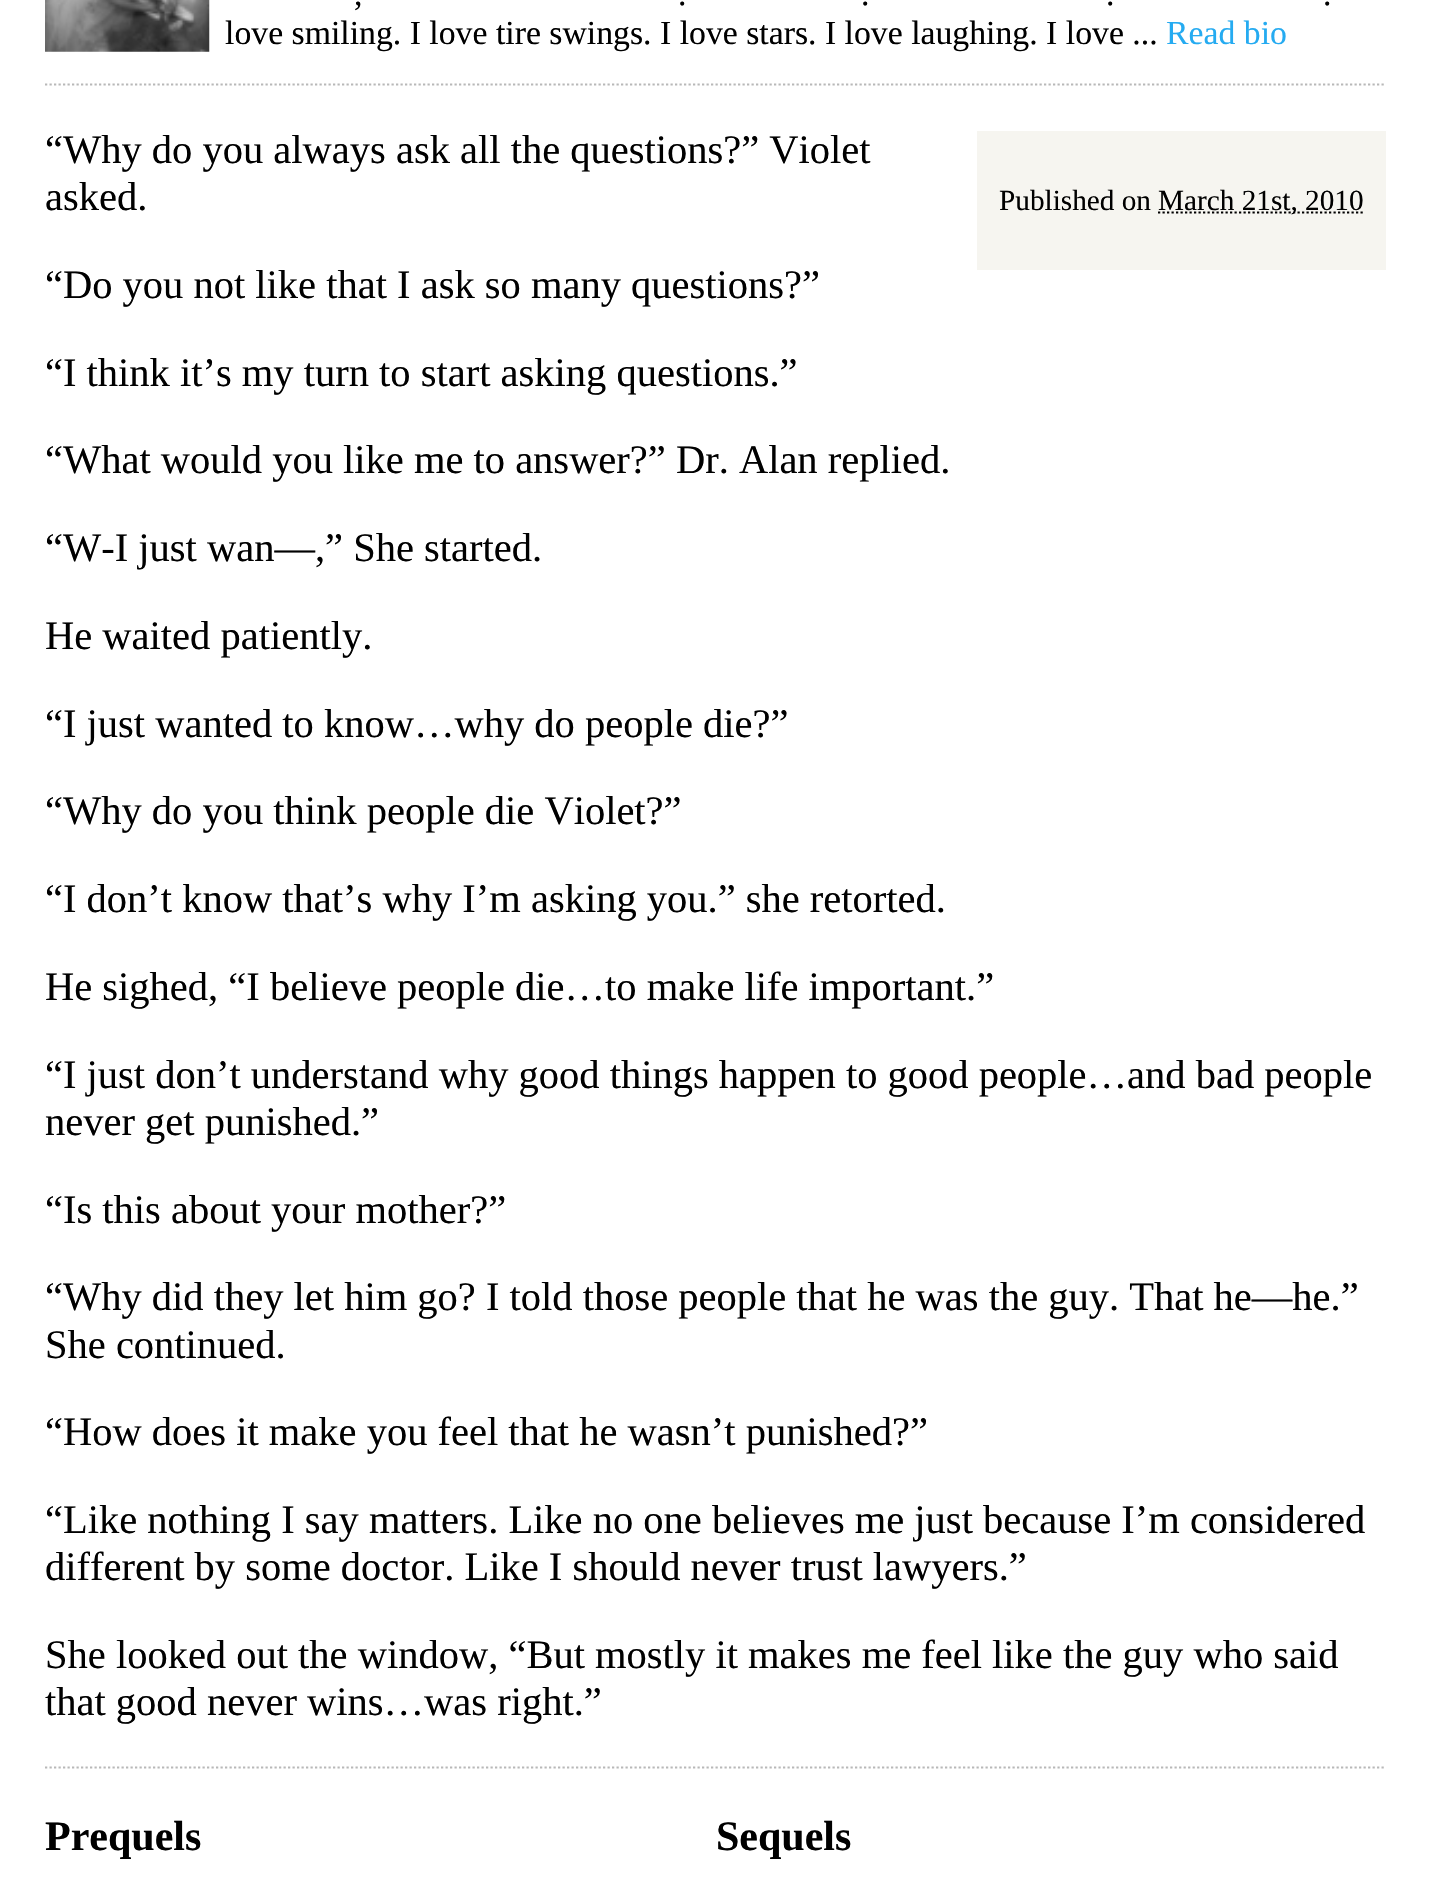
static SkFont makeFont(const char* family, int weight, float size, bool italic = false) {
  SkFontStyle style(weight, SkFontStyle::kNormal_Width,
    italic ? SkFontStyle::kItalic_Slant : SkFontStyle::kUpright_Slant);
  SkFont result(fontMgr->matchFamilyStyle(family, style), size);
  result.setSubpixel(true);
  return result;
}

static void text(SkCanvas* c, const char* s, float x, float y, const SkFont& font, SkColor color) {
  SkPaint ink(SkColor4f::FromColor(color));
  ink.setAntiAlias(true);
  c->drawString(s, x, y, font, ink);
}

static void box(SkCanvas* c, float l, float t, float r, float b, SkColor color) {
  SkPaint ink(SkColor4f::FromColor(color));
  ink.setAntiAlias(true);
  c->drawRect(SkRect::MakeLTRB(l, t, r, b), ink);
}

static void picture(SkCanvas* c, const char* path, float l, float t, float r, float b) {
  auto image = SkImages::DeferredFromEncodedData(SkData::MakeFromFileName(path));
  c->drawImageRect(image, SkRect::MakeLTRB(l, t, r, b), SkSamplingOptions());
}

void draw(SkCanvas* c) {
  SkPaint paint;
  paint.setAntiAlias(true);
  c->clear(0xffffffff);
  paint.setStyle(SkPaint::kStroke_Style);
  paint.setStrokeWidth(2.2f);
  paint.setColor(0xffb8b8b8);
  paint.setPathEffect(SkDashPathEffect::Make({{2.25f, 2.25f}}, 0));
  c->drawPath(SkPathBuilder().moveTo(45, 84.5f).lineTo(1386, 84.5f).detach(), paint);
  paint.setPathEffect(nullptr);
  picture(c, "img_01.png", 45, 0, 210, 52);
  SkFont face1 = makeFont("Liberation Serif", 400, 33.75f);
  text(c, ",", 354, 5, face1, 0xff000000);
  text(c, ".", 678, 5, face1, 0xff000000);
  text(c, ".", 861, 5, face1, 0xff000000);
  text(c, ".", 1106, 5, face1, 0xff000000);
  text(c, ".", 1323, 5, face1, 0xff000000);
  text(c, "love smiling. I love tire swings. I love stars. I love laughing. I love ...", 225, 44, face1, 0xff000000);
  text(c, "Read bio", 1166, 44, face1, 0xff25abf1);
  paint.setPathEffect(SkDashPathEffect::Make({{2.25f, 2.25f}}, 0));
  c->drawPath(SkPathBuilder().moveTo(45, 1767.5f).lineTo(1386, 1767.5f).detach(), paint);
  paint.setPathEffect(nullptr);
  SkFont face2 = makeFont("Liberation Serif", 400, 40.5f);
  text(c, "“Why do you always ask all the questions?” Violet", 45, 163, face2, 0xff000000);
  text(c, "asked.", 45, 210, face2, 0xff000000);
  text(c, "“Do you not like that I ask so many questions?”", 45, 298, face2, 0xff000000);
  text(c, "“I think it’s my turn to start asking questions.”", 45, 386, face2, 0xff000000);
  text(c, "“What would you like me to answer?” Dr. Alan replied.", 45, 473, face2, 0xff000000);
  text(c, "“W-I just wan—,” She started.", 45, 561, face2, 0xff000000);
  text(c, "He waited patiently.", 45, 649, face2, 0xff000000);
  text(c, "“I just wanted to know…why do people die?”", 45, 737, face2, 0xff000000);
  text(c, "“Why do you think people die Violet?”", 45, 824, face2, 0xff000000);
  text(c, "“I don’t know that’s why I’m asking you.” she retorted.", 45, 912, face2, 0xff000000);
  text(c, "He sighed, “I believe people die…to make life important.”", 45, 1000, face2, 0xff000000);
  text(c, "“I just don’t understand why good things happen to good people…and bad people", 45, 1088, face2, 0xff000000);
  text(c, "never get punished.”", 45, 1135, face2, 0xff000000);
  text(c, "“Is this about your mother?”", 45, 1223, face2, 0xff000000);
  text(c, "“Why did they let him go? I told those people that he was the guy. That he—he.”", 45, 1310, face2, 0xff000000);
  text(c, "She continued.", 45, 1358, face2, 0xff000000);
  text(c, "“How does it make you feel that he wasn’t punished?”", 45, 1445, face2, 0xff000000);
  text(c, "“Like nothing I say matters. Like no one believes me just because I’m considered", 45, 1533, face2, 0xff000000);
  text(c, "different by some doctor. Like I should never trust lawyers.”", 45, 1580, face2, 0xff000000);
  text(c, "She looked out the window, “But mostly it makes me feel like the guy who said", 45, 1668, face2, 0xff000000);
  text(c, "that good never wins…was right.”", 45, 1715, face2, 0xff000000);
  box(c, 977, 131, 1386, 270, 0xfff6f5f0);
  SkFont face3 = makeFont("Liberation Serif", 400, 29.25f);
  text(c, "Published on", 999, 210, face3, 0xff000000);
  paint.setColor(0xff000000);
  paint.setPathEffect(SkDashPathEffect::Make({{2.25f, 2.25f}}, 0));
  c->drawPath(SkPathBuilder().moveTo(1158, 212.5f).lineTo(1363.5f, 212.5f).detach(), paint);
  paint.setPathEffect(nullptr);
  text(c, "March 21st, 2010", 1158, 210, face3, 0xff000000);
  SkFont face4 = makeFont("Liberation Serif", 700, 42);
  text(c, "Prequels", 45, 1850, face4, 0xff000000);
  text(c, "Sequels", 716, 1850, face4, 0xff000000);
}
